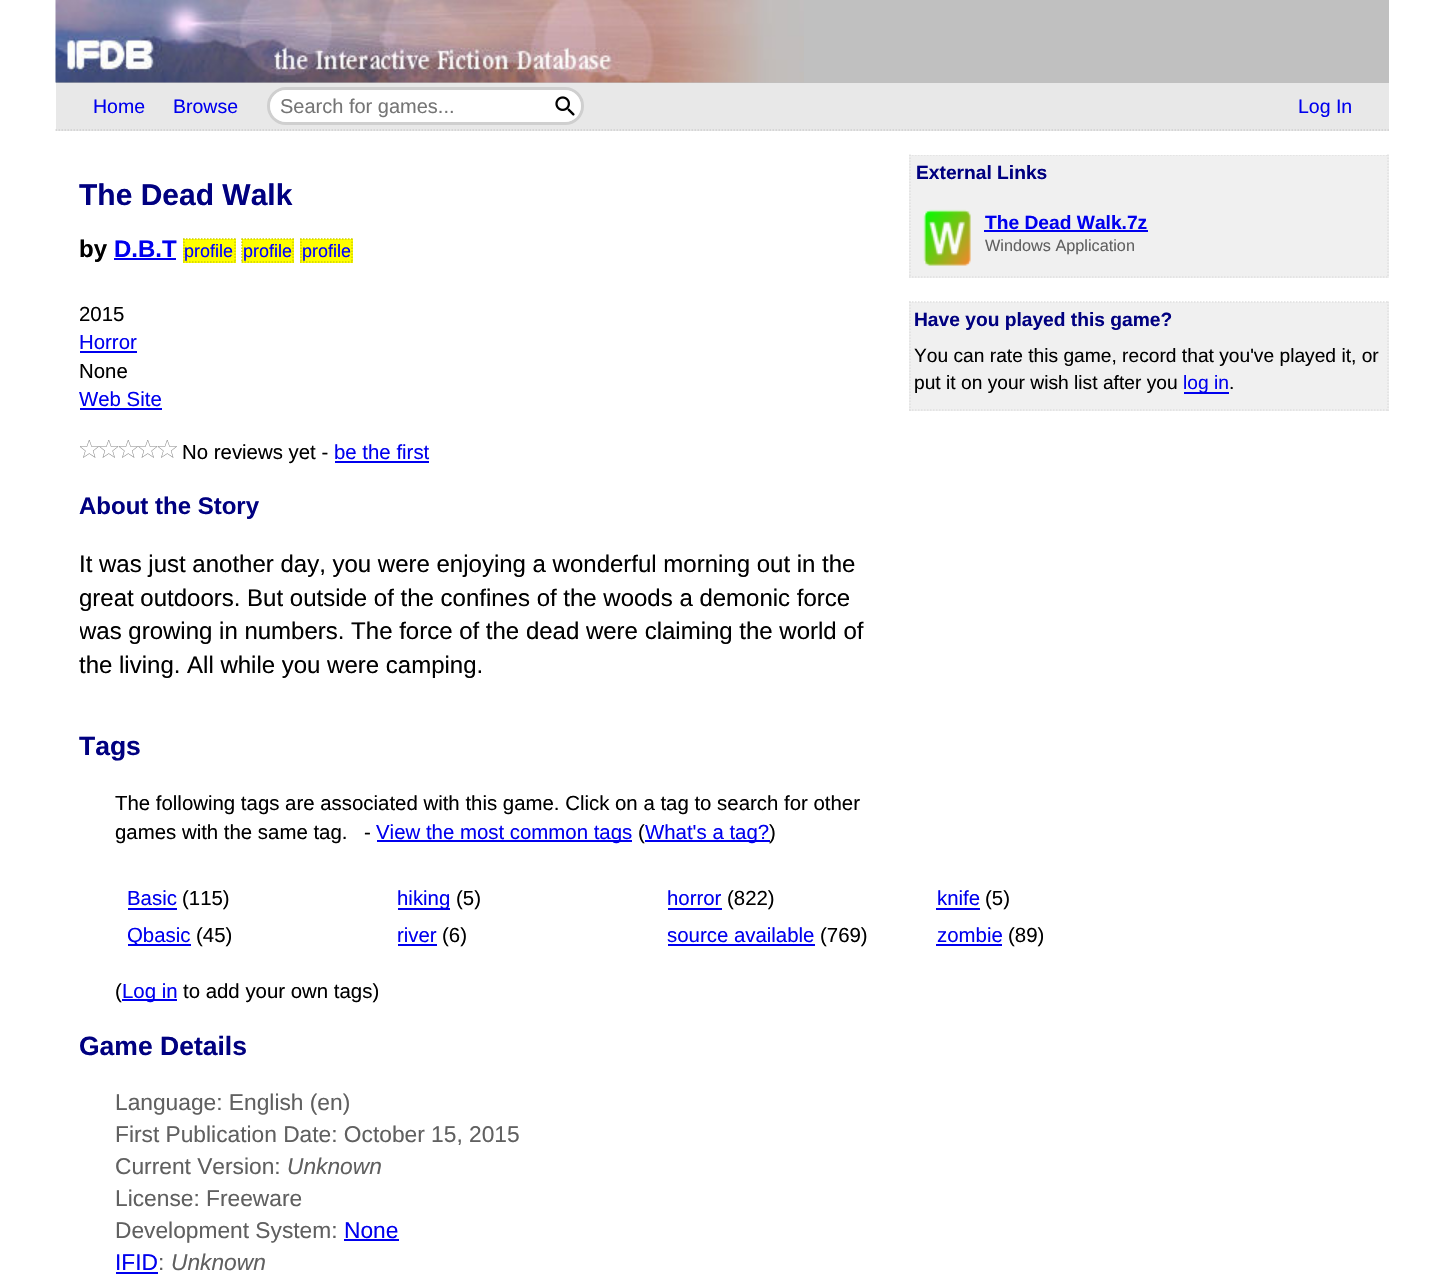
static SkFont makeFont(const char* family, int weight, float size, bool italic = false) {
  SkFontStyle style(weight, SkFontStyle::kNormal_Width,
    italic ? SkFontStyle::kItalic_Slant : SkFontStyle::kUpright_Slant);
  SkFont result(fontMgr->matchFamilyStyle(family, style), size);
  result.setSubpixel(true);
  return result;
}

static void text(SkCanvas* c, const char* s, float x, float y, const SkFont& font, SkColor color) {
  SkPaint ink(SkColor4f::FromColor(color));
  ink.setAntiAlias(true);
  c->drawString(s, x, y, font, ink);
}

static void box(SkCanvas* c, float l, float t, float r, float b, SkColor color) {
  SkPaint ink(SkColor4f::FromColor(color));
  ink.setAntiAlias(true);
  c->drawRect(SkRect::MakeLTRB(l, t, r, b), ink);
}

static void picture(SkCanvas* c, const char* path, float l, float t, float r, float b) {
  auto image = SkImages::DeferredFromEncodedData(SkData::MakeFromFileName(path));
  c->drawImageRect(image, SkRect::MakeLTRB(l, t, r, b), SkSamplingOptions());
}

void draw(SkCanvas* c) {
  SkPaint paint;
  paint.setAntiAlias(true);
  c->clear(0xffffffff);
  box(c, 56, 83, 1389, 131, 0xffe8e8e8);
  paint.setStyle(SkPaint::kStroke_Style);
  paint.setStrokeWidth(1.5f);
  paint.setColor(0xffd0d0d0);
  paint.setPathEffect(SkDashPathEffect::Make({{1.5f, 1.5f}}, 0));
  c->drawPath(SkPathBuilder().moveTo(55.5f, 130).lineTo(1389, 130).detach(), paint);
  paint.setPathEffect(nullptr);
  box(c, 56, 0, 1389, 83, 0xffc0c0c0);
  picture(c, "img_01.png", 55, 0, 804, 83);
  SkFont face1 = makeFont("Liberation Sans", 400, 19.5f);
  text(c, "Home", 93, 113, face1, 0xff0000ee);
  text(c, "Browse", 173, 113, face1, 0xff0000ee);
  paint.setStrokeWidth(3);
  paint.setColor(0xffcfcfcf);
  c->drawRoundRect(SkRect::MakeLTRB(268.5f, 88.5f, 582.5f, 123.5f), 17.5f, 17.5f, paint);
  paint.setStyle(SkPaint::kFill_Style);
  paint.setColor(0xffffffff);
  c->drawPath(SkPathBuilder().moveTo(286, 90).lineTo(551, 90).lineTo(551, 122).lineTo(286, 122).cubicTo(277, 122, 270, 115, 270, 106).cubicTo(270, 97, 277, 90, 286, 90).close().detach(), paint);
  SkFont face2 = makeFont("Liberation Sans", 400, 20);
  text(c, "Search for games...", 280, 113, face2, 0xff757575);
  c->drawPath(SkPathBuilder().moveTo(551, 90).lineTo(565, 90).cubicTo(574, 90, 581, 97, 581, 106).cubicTo(581, 115, 574, 122, 565, 122).lineTo(551, 122).close().detach(), paint);
  picture(c, "img_02.png", 555, 96, 575, 116);
  text(c, "Log In", 1298, 113, face1, 0xff0000ee);
  SkFont face3 = makeFont("Liberation Sans", 700, 30);
  text(c, "The Dead Walk", 79, 205, face3, 0xff000080);
  SkFont face4 = makeFont("Liberation Sans", 700, 24);
  text(c, "by", 79, 257, face4, 0xff000000);
  text(c, "D.B.T", 114, 257, face4, 0xff0000ee);
  box(c, 114, 258, 176, 260, 0xff0000ee);
  box(c, 183, 239, 236, 263, 0xffffff00);
  paint.setStyle(SkPaint::kStroke_Style);
  paint.setStrokeWidth(1.5f);
  paint.setColor(0xffd0d000);
  paint.setPathEffect(SkDashPathEffect::Make({{1.5f, 1.5f}}, 0));
  c->drawPath(SkPathBuilder().moveTo(183, 239).lineTo(235.5f, 239).moveTo(235, 238.5f).lineTo(235, 262.5f).moveTo(183, 262).lineTo(235.5f, 262).moveTo(184, 238.5f).lineTo(184, 262.5f).detach(), paint);
  paint.setPathEffect(nullptr);
  SkFont face5 = makeFont("Liberation Sans", 400, 18);
  text(c, "profile", 184, 257, face5, 0xff0000ff);
  box(c, 242, 239, 294, 263, 0xffffff00);
  paint.setPathEffect(SkDashPathEffect::Make({{1.5f, 1.5f}}, 0));
  c->drawPath(SkPathBuilder().moveTo(241.5f, 239).lineTo(294, 239).moveTo(293, 238.5f).lineTo(293, 262.5f).moveTo(241.5f, 262).lineTo(294, 262).moveTo(242, 238.5f).lineTo(242, 262.5f).detach(), paint);
  paint.setPathEffect(nullptr);
  text(c, "profile", 243, 257, face5, 0xff0000ff);
  box(c, 300, 239, 353, 263, 0xffffff00);
  paint.setPathEffect(SkDashPathEffect::Make({{1.5f, 1.5f}}, 0));
  c->drawPath(SkPathBuilder().moveTo(300, 239).lineTo(352.5f, 239).moveTo(352, 238.5f).lineTo(352, 262.5f).moveTo(300, 262).lineTo(352.5f, 262).moveTo(301, 238.5f).lineTo(301, 262.5f).detach(), paint);
  paint.setPathEffect(nullptr);
  text(c, "profile", 302, 257, face5, 0xff0000ff);
  SkFont face6 = makeFont("Liberation Sans", 400, 20.4f);
  text(c, "2015", 79, 321, face6, 0xff000000);
  text(c, "Horror", 79, 349, face6, 0xff0000ee);
  box(c, 80, 351, 137, 353, 0xff0000ee);
  text(c, "None", 79, 378, face6, 0xff000000);
  text(c, "Web Site", 79, 406, face6, 0xff0000ee);
  box(c, 80, 408, 162, 410, 0xff0000ee);
  picture(c, "img_03.png", 80, 440, 99, 458);
  picture(c, "img_04.png", 99, 440, 119, 458);
  picture(c, "img_03.png", 119, 440, 138, 458);
  picture(c, "img_04.png", 138, 440, 158, 458);
  picture(c, "img_03.png", 158, 440, 177, 458);
  text(c, "No reviews yet -", 182, 459, face6, 0xff000000);
  text(c, "be the first", 334, 459, face6, 0xff0000ee);
  box(c, 335, 461, 429, 463, 0xff0000ee);
  text(c, "About the Story", 79, 514, face4, 0xff000080);
  SkFont face7 = makeFont("Liberation Sans", 400, 24);
  text(c, "It was just another day, you were enjoying a wonderful morning out in the", 79, 572, face7, 0xff000000);
  c->save();
  c->clipRect(SkRect::MakeLTRB(80, 524, 879, 707));
  text(c, "great outdoors. But outside of the confines of the woods a demonic force", 79, 606, face7, 0xff000000);
  text(c, "was growing in numbers. The force of the dead were claiming the world of", 79, 639, face7, 0xff000000);
  c->restore();
  text(c, "the living. All while you were camping.", 79, 673, face7, 0xff000000);
  box(c, 909, 155, 1389, 278, 0xfff0f0f0);
  c->save();
  c->clipRect(SkRect::MakeLTRB(909, 155, 1389, 278));
  paint.setColor(0xffe0e0e0);
  paint.setPathEffect(SkDashPathEffect::Make({{1.5f, 1.5f}}, 0));
  c->drawPath(SkPathBuilder().moveTo(909, 155).lineTo(1389, 155).detach(), paint);
  paint.setPathEffect(nullptr);
  c->restore();
  paint.setPathEffect(SkDashPathEffect::Make({{1.5f, 1.5f}}, 0));
  c->drawPath(SkPathBuilder().moveTo(1388, 154.5f).lineTo(1388, 277.5f).detach(), paint);
  paint.setPathEffect(nullptr);
  paint.setPathEffect(SkDashPathEffect::Make({{1.5f, 1.5f}}, 0));
  c->drawPath(SkPathBuilder().moveTo(909, 277).lineTo(1389, 277).detach(), paint);
  paint.setPathEffect(nullptr);
  paint.setPathEffect(SkDashPathEffect::Make({{1.5f, 1.5f}}, 0));
  c->drawPath(SkPathBuilder().moveTo(910, 154.5f).lineTo(910, 277.5f).detach(), paint);
  paint.setPathEffect(nullptr);
  SkFont face8 = makeFont("Liberation Sans", 700, 19.2f);
  text(c, "External Links", 916, 179, face8, 0xff000080);
  picture(c, "img_05.png", 923, 209, 971, 266);
  text(c, "The Dead Walk.7z", 985, 229, face8, 0xff0000ee);
  box(c, 984, 230, 1148, 232, 0xff0000ee);
  SkFont face9 = makeFont("Liberation Sans", 400, 16.25f);
  text(c, "Windows Application", 985, 251, face9, 0xff606060);
  box(c, 909, 302, 1389, 411, 0xfff0f0f0);
  paint.setPathEffect(SkDashPathEffect::Make({{1.5f, 1.5f}}, 0));
  c->drawPath(SkPathBuilder().moveTo(909, 302).lineTo(1389, 302).detach(), paint);
  paint.setPathEffect(nullptr);
  paint.setPathEffect(SkDashPathEffect::Make({{1.5f, 1.5f}}, 0));
  c->drawPath(SkPathBuilder().moveTo(1388, 301.5f).lineTo(1388, 411).detach(), paint);
  paint.setPathEffect(nullptr);
  paint.setPathEffect(SkDashPathEffect::Make({{1.5f, 1.5f}}, 0));
  c->drawPath(SkPathBuilder().moveTo(909, 410).lineTo(1389, 410).detach(), paint);
  paint.setPathEffect(nullptr);
  paint.setPathEffect(SkDashPathEffect::Make({{1.5f, 1.5f}}, 0));
  c->drawPath(SkPathBuilder().moveTo(910, 301.5f).lineTo(910, 411).detach(), paint);
  paint.setPathEffect(nullptr);
  text(c, "Have you played this game?", 914, 326, face8, 0xff000080);
  SkFont face10 = makeFont("Liberation Sans", 400, 19.2f);
  text(c, "You can rate this game, record that you've played it, or", 914, 362, face10, 0xff000000);
  text(c, "put it on your wish list after you", 914, 389, face10, 0xff000000);
  box(c, 1184, 392, 1229, 394, 0xff0000ee);
  text(c, "log in", 1183, 389, face10, 0xff0000ee);
  text(c, ".", 1229, 389, face10, 0xff000000);
  SkFont face11 = makeFont("Liberation Sans", 700, 26.5f);
  text(c, "Tags", 79, 755, face11, 0xff000080);
  text(c, "The following tags are associated with this game. Click on a tag to search for other", 115, 810, face6, 0xff000000);
  text(c, "games with the same tag.", 115, 839, face6, 0xff000000);
  text(c, "-", 364, 839, face6, 0xff000000);
  box(c, 377, 840, 632, 842, 0xff0000ee);
  text(c, "View the most common tags", 376, 839, face6, 0xff0000ee);
  text(c, "(", 638, 839, face6, 0xff000000);
  box(c, 645, 840, 770, 842, 0xff0000ee);
  text(c, "What's a tag?", 645, 839, face6, 0xff0000ee);
  text(c, ")", 769, 839, face6, 0xff000000);
  text(c, "Basic", 127, 905, face6, 0xff0000ee);
  box(c, 128, 908, 177, 910, 0xff0000ee);
  text(c, "(115)", 182, 905, face6, 0xff000000);
  box(c, 398, 908, 450, 910, 0xff0000ee);
  text(c, "hiking", 397, 905, face6, 0xff0000ee);
  text(c, "(5)", 456, 905, face6, 0xff000000);
  text(c, "horror", 667, 905, face6, 0xff0000ee);
  box(c, 668, 908, 722, 910, 0xff0000ee);
  text(c, "(822)", 727, 905, face6, 0xff000000);
  text(c, "knife", 937, 905, face6, 0xff0000ee);
  box(c, 936, 908, 980, 910, 0xff0000ee);
  text(c, "(5)", 985, 905, face6, 0xff000000);
  box(c, 128, 944, 191, 946, 0xff0000ee);
  text(c, "Qbasic", 127, 942, face6, 0xff0000ee);
  text(c, "(45)", 196, 942, face6, 0xff000000);
  text(c, "river", 397, 942, face6, 0xff0000ee);
  box(c, 398, 944, 437, 946, 0xff0000ee);
  text(c, "(6)", 442, 942, face6, 0xff000000);
  text(c, "source available", 667, 942, face6, 0xff0000ee);
  box(c, 668, 944, 815, 946, 0xff0000ee);
  text(c, "(769)", 820, 942, face6, 0xff000000);
  text(c, "zombie", 937, 942, face6, 0xff0000ee);
  box(c, 936, 944, 1002, 946, 0xff0000ee);
  text(c, "(89)", 1008, 942, face6, 0xff000000);
  text(c, "(", 115, 998, face6, 0xff000000);
  box(c, 122, 999, 177, 1001, 0xff0000ee);
  text(c, "Log in", 122, 998, face6, 0xff0000ee);
  text(c, "to add your own tags)", 183, 998, face6, 0xff000000);
  text(c, "Game Details", 79, 1055, face11, 0xff000080);
  SkFont face12 = makeFont("Liberation Sans", 400, 22.75f);
  text(c, "Language: English (en)", 115, 1110, face12, 0xff606060);
  text(c, "First Publication Date: October 15, 2015", 115, 1142, face12, 0xff606060);
  text(c, "Current Version:", 115, 1174, face12, 0xff606060);
  SkFont face13 = makeFont("Liberation Sans", 400, 22.75f, true);
  text(c, "Unknown", 287, 1174, face13, 0xff606060);
  text(c, "License: Freeware", 115, 1206, face12, 0xff606060);
  text(c, "Development System:", 115, 1238, face12, 0xff606060);
  text(c, "None", 344, 1238, face12, 0xff0000ee);
  box(c, 344, 1239, 399, 1241, 0xff0000ee);
  text(c, "IFID", 115, 1270, face12, 0xff0000ee);
  text(c, ":", 158, 1270, face12, 0xff606060);
  box(c, 116, 1272, 158, 1274, 0xff0000ee);
  text(c, "Unknown", 171, 1270, face13, 0xff606060);
}
